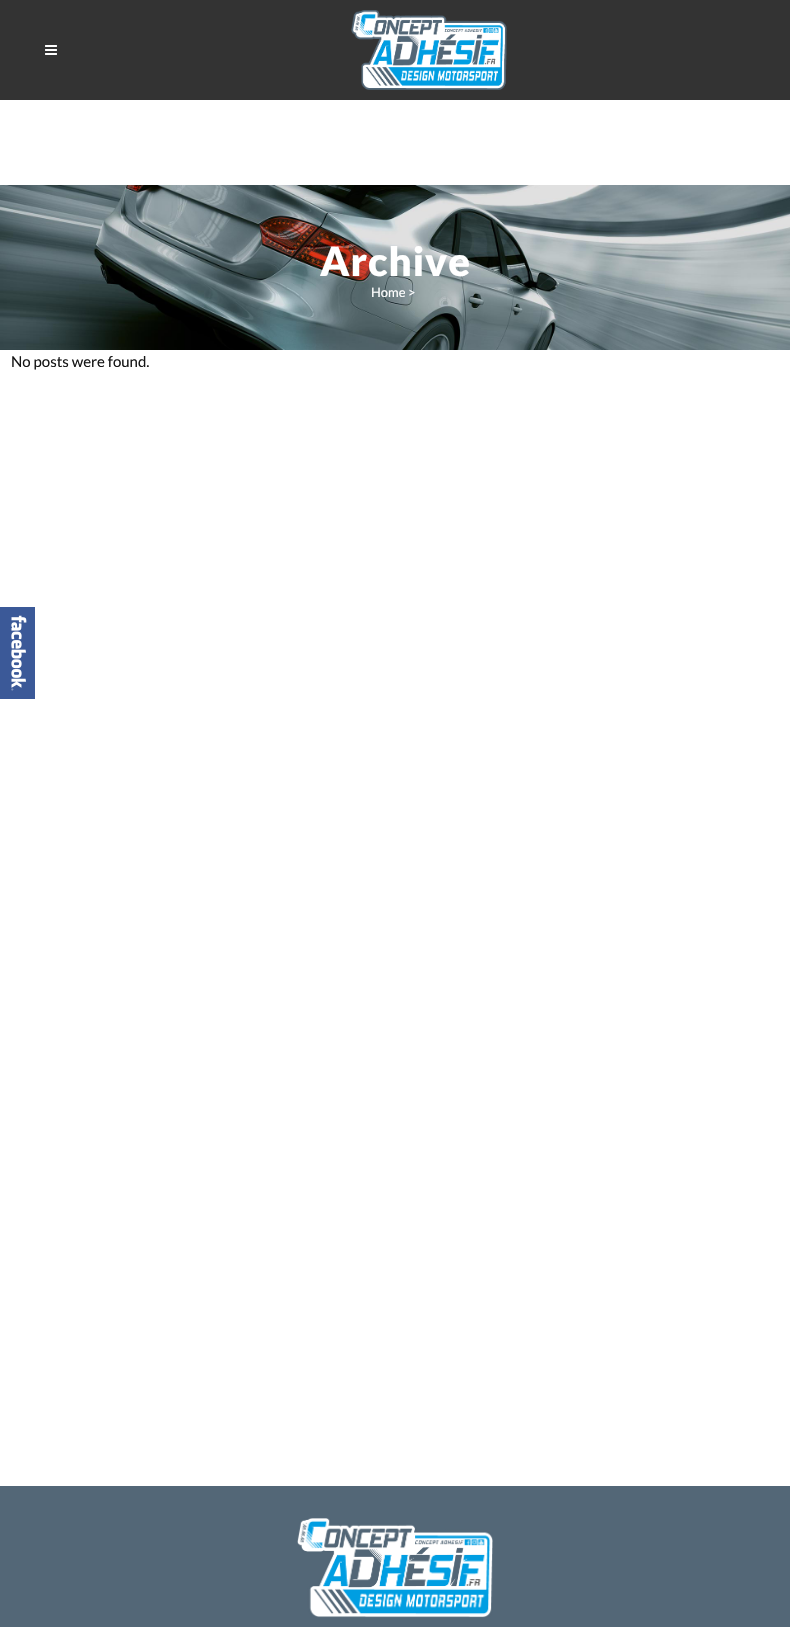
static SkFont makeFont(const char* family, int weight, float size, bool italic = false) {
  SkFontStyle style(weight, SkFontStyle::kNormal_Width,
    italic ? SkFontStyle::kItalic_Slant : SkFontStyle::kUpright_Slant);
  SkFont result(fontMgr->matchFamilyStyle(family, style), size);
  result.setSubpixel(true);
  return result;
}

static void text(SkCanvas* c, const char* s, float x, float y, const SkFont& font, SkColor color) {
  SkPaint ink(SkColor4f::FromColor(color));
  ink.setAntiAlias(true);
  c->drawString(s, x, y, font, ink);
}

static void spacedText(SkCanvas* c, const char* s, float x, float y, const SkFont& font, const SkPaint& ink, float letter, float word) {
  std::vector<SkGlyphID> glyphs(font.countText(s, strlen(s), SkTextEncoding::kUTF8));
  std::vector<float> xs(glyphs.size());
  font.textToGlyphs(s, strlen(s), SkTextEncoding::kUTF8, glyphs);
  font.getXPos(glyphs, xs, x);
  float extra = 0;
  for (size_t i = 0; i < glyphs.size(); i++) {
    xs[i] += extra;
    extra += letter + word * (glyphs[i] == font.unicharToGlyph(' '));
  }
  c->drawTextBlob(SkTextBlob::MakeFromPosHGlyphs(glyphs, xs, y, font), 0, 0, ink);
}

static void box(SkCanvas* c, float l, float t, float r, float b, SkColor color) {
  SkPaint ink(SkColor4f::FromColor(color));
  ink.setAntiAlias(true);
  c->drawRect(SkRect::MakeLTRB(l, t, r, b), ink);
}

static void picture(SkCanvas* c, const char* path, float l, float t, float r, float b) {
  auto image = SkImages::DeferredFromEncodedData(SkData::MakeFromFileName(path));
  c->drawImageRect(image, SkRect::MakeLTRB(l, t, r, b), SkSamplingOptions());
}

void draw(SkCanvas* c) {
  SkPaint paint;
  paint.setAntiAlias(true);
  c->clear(0xffffffff);
  box(c, 0, 0, 790, 100, 0xff333333);
  picture(c, "img_01.png", 45, 45, 57, 55);
  picture(c, "img_02.png", 351, 10, 507, 90);
  picture(c, "img_03.png", 0, 185, 790, 350);
  SkFont face1 = makeFont("Lato", 900, 40);
  paint.setColor(0xffffffff);
  spacedText(c, "Archive", 320, 276, face1, paint, 1, 0);
  SkFont face2 = makeFont("Lato", 400, 13);
  text(c, "Home >", 371, 297, face2, 0xffffffff);
  SkFont face3 = makeFont("Lato", 400, 15);
  text(c, "No posts were found.", 11, 367, face3, 0xff161616);
  box(c, 0, 1486, 790, 1627, 0xff536777);
  picture(c, "img_04.png", 297, 1518, 493, 1618);
  picture(c, "img_05.png", 0, 607, 35, 699);
}
